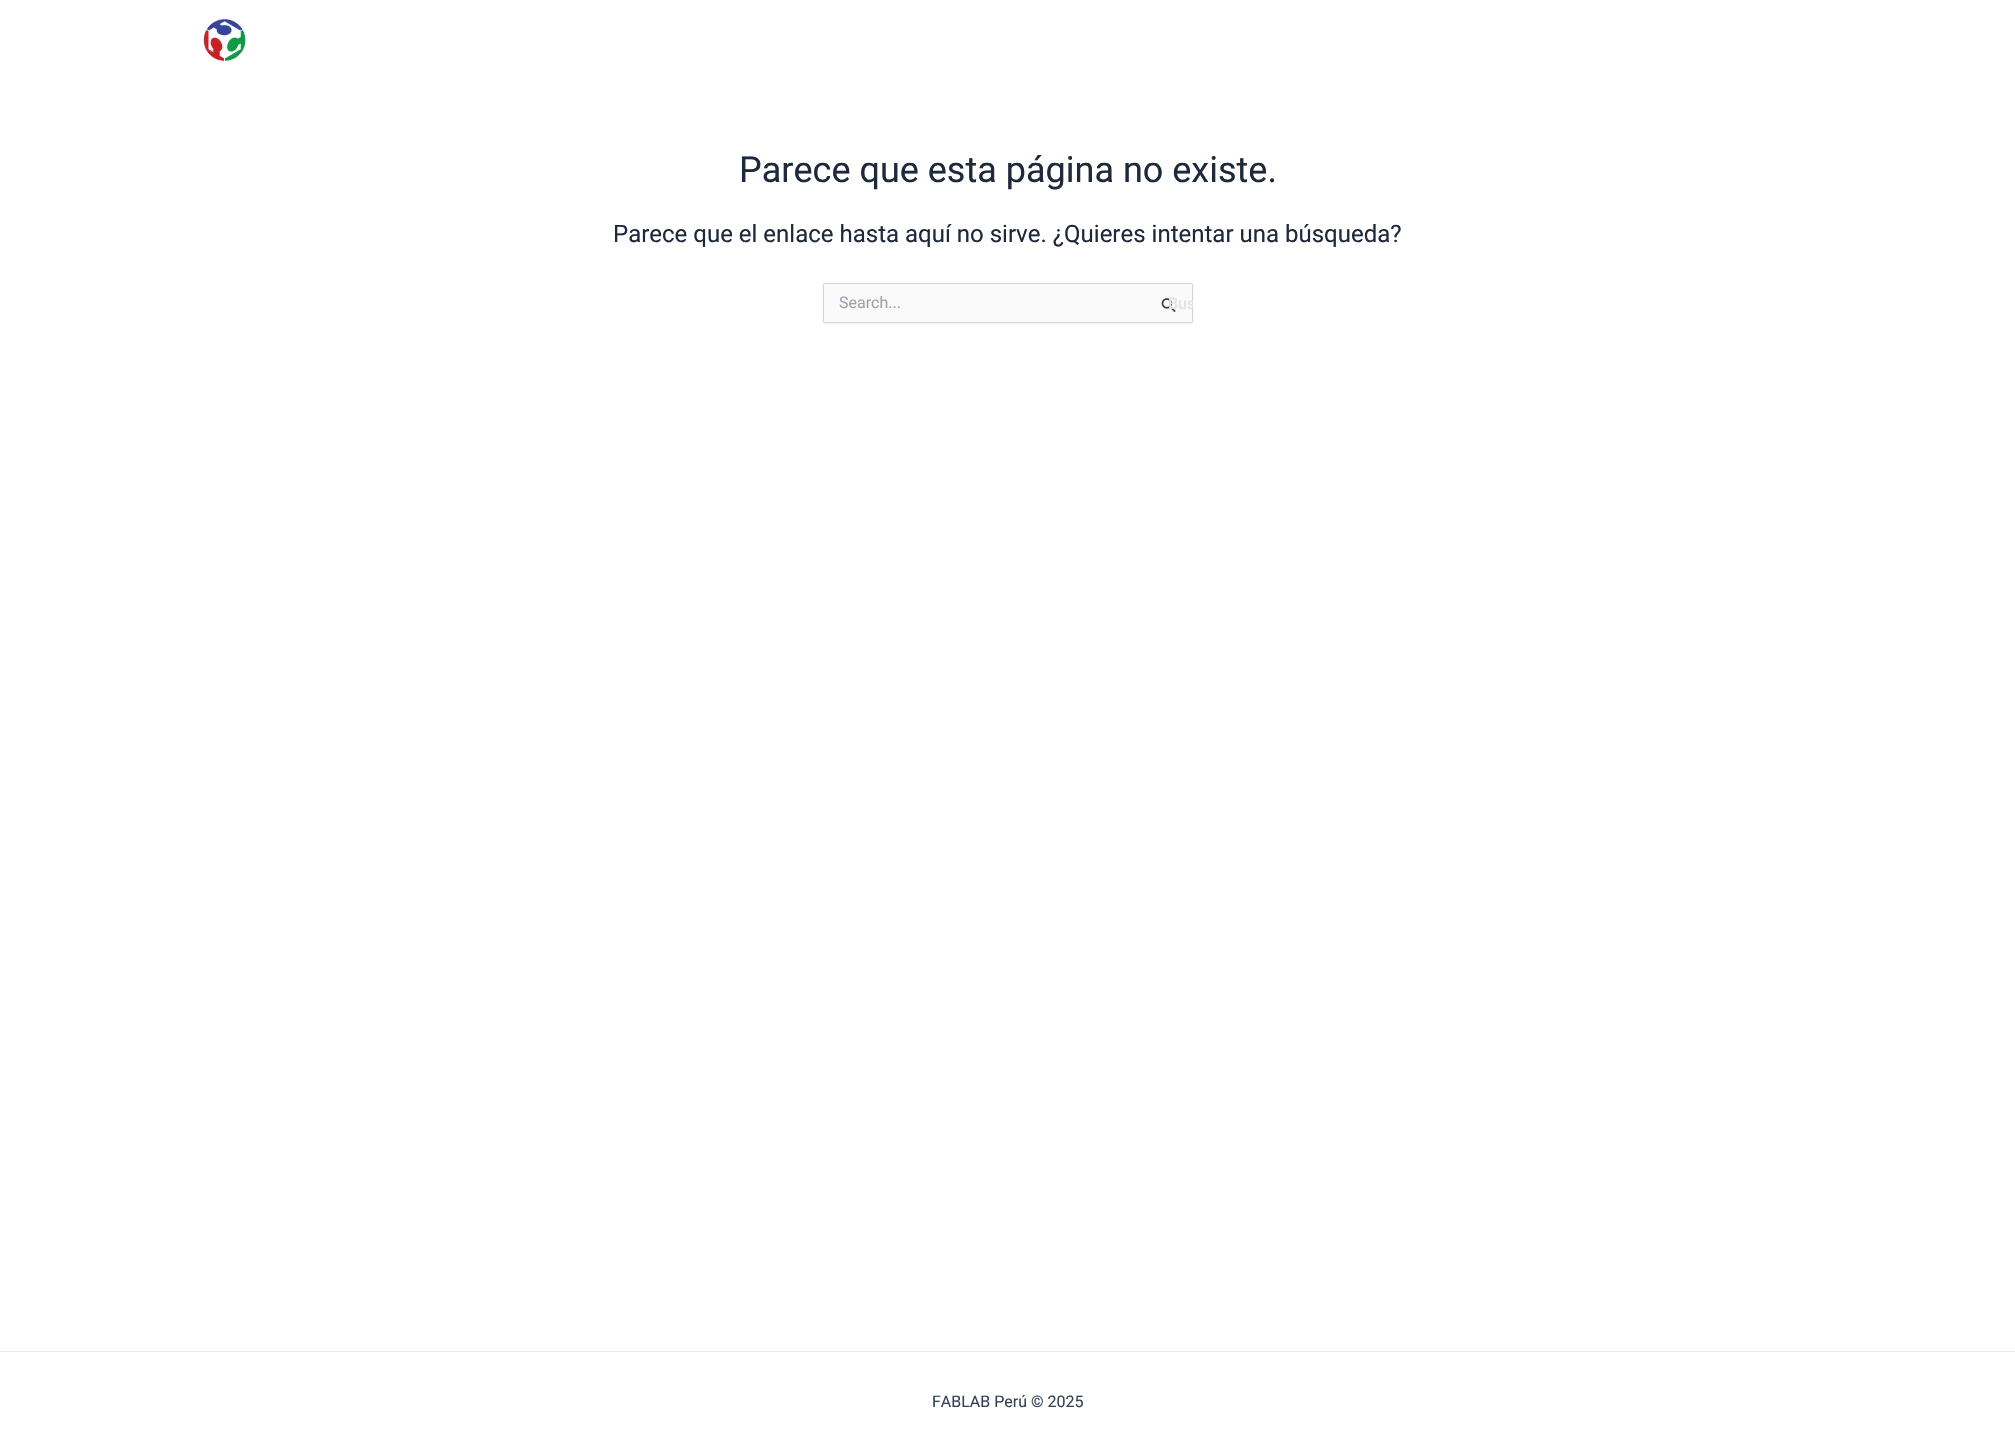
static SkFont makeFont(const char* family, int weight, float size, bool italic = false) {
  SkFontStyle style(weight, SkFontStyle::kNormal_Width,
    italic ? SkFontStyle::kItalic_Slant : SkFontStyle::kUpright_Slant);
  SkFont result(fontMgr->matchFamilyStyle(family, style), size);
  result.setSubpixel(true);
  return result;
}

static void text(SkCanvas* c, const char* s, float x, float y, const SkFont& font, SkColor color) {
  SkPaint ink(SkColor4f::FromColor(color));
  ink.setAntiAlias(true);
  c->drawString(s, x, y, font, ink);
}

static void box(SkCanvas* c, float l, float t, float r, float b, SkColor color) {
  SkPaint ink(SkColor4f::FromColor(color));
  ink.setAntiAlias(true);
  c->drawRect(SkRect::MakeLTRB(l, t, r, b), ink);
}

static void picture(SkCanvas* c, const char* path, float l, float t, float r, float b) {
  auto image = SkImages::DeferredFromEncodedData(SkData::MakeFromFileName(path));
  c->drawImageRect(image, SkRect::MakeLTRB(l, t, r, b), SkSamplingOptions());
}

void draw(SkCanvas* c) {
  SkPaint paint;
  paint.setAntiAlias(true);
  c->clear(0xffffffff);
  picture(c, "img_01.png", 203, 18, 247, 62);
  SkFont face1 = makeFont("Roboto", 400, 36);
  text(c, "Parece que esta página no existe.", 739, 182, face1, 0xff1e293b);
  SkFont face2 = makeFont("Roboto", 400, 24);
  text(c, "Parece que el enlace hasta aquí no sirve. ¿Quieres intentar una búsqueda?", 613, 242, face2, 0xff1e293b);
  paint.setColor(0x0d000000);
  paint.setMaskFilter(SkMaskFilter::MakeBlur(kNormal_SkBlurStyle, 1));
  c->drawRoundRect(SkRect::MakeLTRB(823, 284, 1193, 324), 2, 2, paint);
  paint.setMaskFilter(nullptr);
  paint.setColor(0xfffafafa);
  c->drawRoundRect(SkRect::MakeLTRB(823.5f, 283.5f, 1192.5f, 322.5f), 1.5f, 1.5f, paint);
  paint.setStyle(SkPaint::kStroke_Style);
  paint.setStrokeWidth(1);
  paint.setColor(0xffd1d5db);
  c->drawRoundRect(SkRect::MakeLTRB(823.5f, 283.5f, 1192.5f, 322.5f), 1.5f, 1.5f, paint);
  SkFont face3 = makeFont("Roboto", 400, 16);
  text(c, "Search...", 839, 308, face3, 0xff9ca3af);
  picture(c, "img_02.png", 1161, 298, 1176, 313);
  c->save();
  c->clipPath(SkPathBuilder().moveTo(1150, 283).lineTo(1191, 283).cubicTo(1192, 283, 1193, 284, 1193, 285).lineTo(1193, 323).cubicTo(1193, 324, 1192, 325, 1191, 325).lineTo(1150, 325).cubicTo(1149, 325, 1148, 324, 1148, 323).lineTo(1148, 285).cubicTo(1148, 284, 1149, 283, 1150, 283).close().detach(), true);
  SkFont face4 = makeFont("Roboto", 500, 16);
  text(c, "Bus", 1168, 309, face4, 0xffe4e4e5);
  c->restore();
  box(c, 0, 1351, 2015, 1352, 0xffeaeaea);
  text(c, "FABLAB Perú © 2025", 932, 1407, face3, 0xff334155);
}
